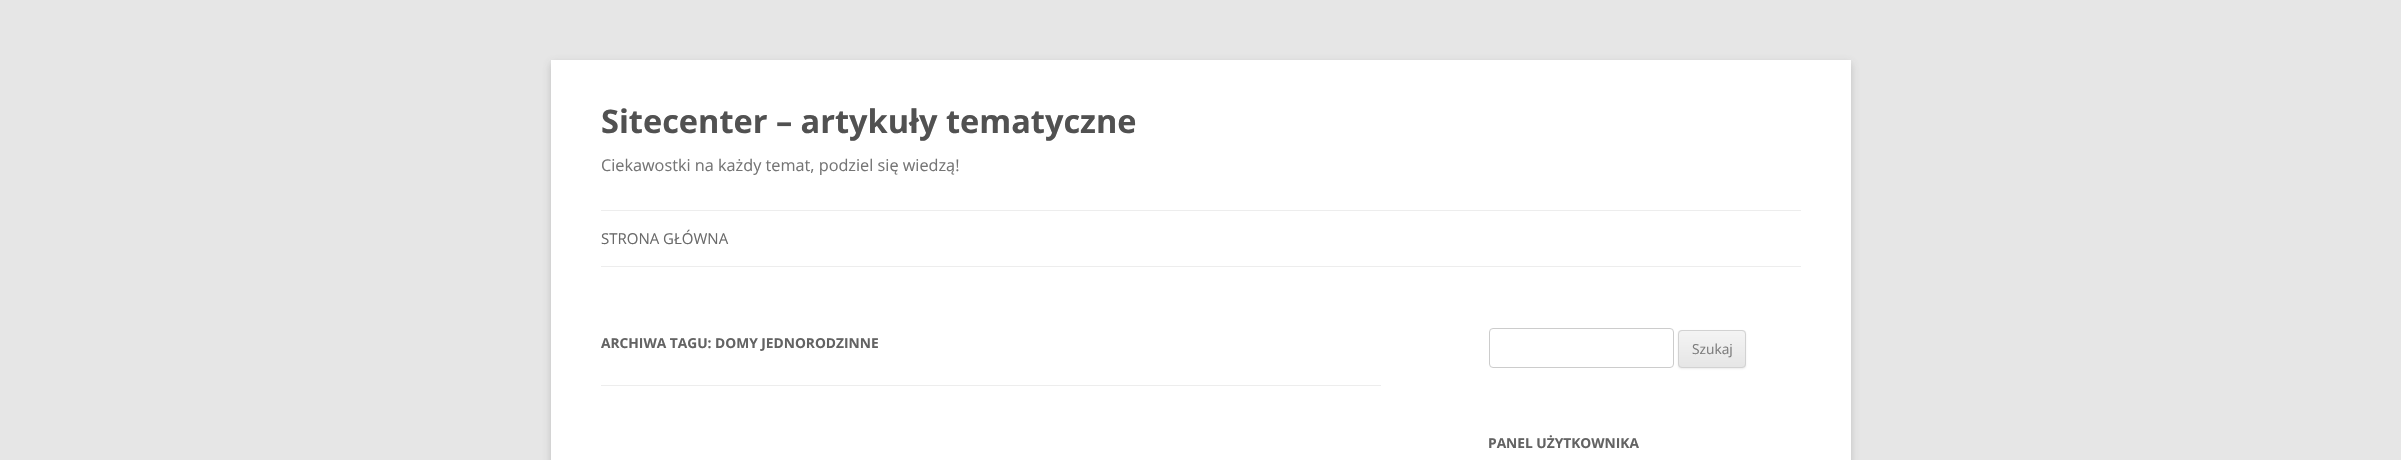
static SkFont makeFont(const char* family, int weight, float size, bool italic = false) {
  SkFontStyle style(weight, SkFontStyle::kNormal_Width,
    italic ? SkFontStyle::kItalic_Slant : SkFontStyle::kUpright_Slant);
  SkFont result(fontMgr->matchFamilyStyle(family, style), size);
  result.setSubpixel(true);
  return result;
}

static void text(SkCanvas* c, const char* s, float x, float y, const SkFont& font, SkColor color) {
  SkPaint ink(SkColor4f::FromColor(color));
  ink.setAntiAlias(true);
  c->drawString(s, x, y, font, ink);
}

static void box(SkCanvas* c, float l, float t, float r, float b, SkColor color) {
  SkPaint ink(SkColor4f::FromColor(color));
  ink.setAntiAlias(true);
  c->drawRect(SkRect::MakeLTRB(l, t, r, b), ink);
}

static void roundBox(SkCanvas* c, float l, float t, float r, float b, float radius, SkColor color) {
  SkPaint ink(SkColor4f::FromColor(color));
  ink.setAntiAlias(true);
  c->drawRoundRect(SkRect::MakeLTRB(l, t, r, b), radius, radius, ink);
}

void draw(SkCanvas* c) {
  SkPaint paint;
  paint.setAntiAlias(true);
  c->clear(0xffe6e6e6);
  paint.setColor(0x4d646464);
  paint.setMaskFilter(SkMaskFilter::MakeBlur(kNormal_SkBlurStyle, 4));
  c->drawRect(SkRect::MakeLTRB(551, 63, 1851, 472), paint);
  paint.setMaskFilter(nullptr);
  box(c, 551, 60, 1851, 460, 0xffffffff);
  SkFont face1 = makeFont("Open Sans", 700, 32.5f);
  text(c, "Sitecenter – artykuły tematyczne", 601, 133, face1, 0xff515151);
  SkFont face2 = makeFont("Open Sans", 400, 16.25f);
  text(c, "Ciekawostki na każdy temat, podziel się wiedzą!", 601, 171, face2, 0xff757575);
  box(c, 601, 210, 1801, 211, 0xffededed);
  box(c, 601, 266, 1801, 267, 0xffededed);
  SkFont face3 = makeFont("Open Sans", 400, 15);
  text(c, "STRONA GŁÓWNA", 601, 244, face3, 0xff6a6a6a);
  box(c, 601, 385, 1381, 386, 0xffededed);
  SkFont face4 = makeFont("Open Sans", 700, 13.75f);
  text(c, "ARCHIWA TAGU: DOMY JEDNORODZINNE", 601, 348, face4, 0xff636363);
  paint.setStyle(SkPaint::kStroke_Style);
  paint.setStrokeWidth(1);
  paint.setColor(0xffcccccc);
  c->drawRoundRect(SkRect::MakeLTRB(1489.5f, 328.5f, 1673.5f, 367.5f), 3.5f, 3.5f, paint);
  paint.setStyle(SkPaint::kFill_Style);
  paint.setColor(0x1a404040);
  paint.setMaskFilter(SkMaskFilter::MakeBlur(kNormal_SkBlurStyle, 1));
  c->drawRoundRect(SkRect::MakeLTRB(1678, 331, 1746, 369), 4, 4, paint);
  paint.setMaskFilter(nullptr);
  roundBox(c, 1678, 330, 1746, 368, 4, 0xffe6e6e6);
  c->save();
  c->clipPath(SkPathBuilder().moveTo(1682, 330).lineTo(1742, 330).cubicTo(1744, 330, 1746, 332, 1746, 334).lineTo(1746, 364).cubicTo(1746, 366, 1744, 368, 1742, 368).lineTo(1682, 368).cubicTo(1680, 368, 1678, 366, 1678, 364).lineTo(1678, 334).cubicTo(1678, 332, 1680, 330, 1682, 330).close().detach(), true);
  {
    const SkColor colors[] = {0xfff4f4f4, 0xffe6e6e6};
    const float stops[] = {0, 1};
    const SkPoint ends[] = {{1712, 331}, {1712, 366}};
    paint.setShader(SkGradientShader::MakeLinear(ends, colors, stops, 2, SkTileMode::kClamp));
    paint.setAlpha(255);
  }
  c->drawRect(SkRect::MakeLTRB(1678, 331, 1746, 366), paint);
  c->restore();
  paint.setStyle(SkPaint::kStroke_Style);
  paint.setShader(nullptr);
  paint.setColor(0xffd2d2d2);
  c->drawRoundRect(SkRect::MakeLTRB(1678.5f, 330.5f, 1745.5f, 367.5f), 3.5f, 3.5f, paint);
  SkFont face5 = makeFont("Open Sans", 400, 13.75f);
  text(c, "Szukaj", 1692, 354, face5, 0xff7c7c7c);
  text(c, "PANEL UŻYTKOWNIKA", 1488, 448, face4, 0xff636363);
}
